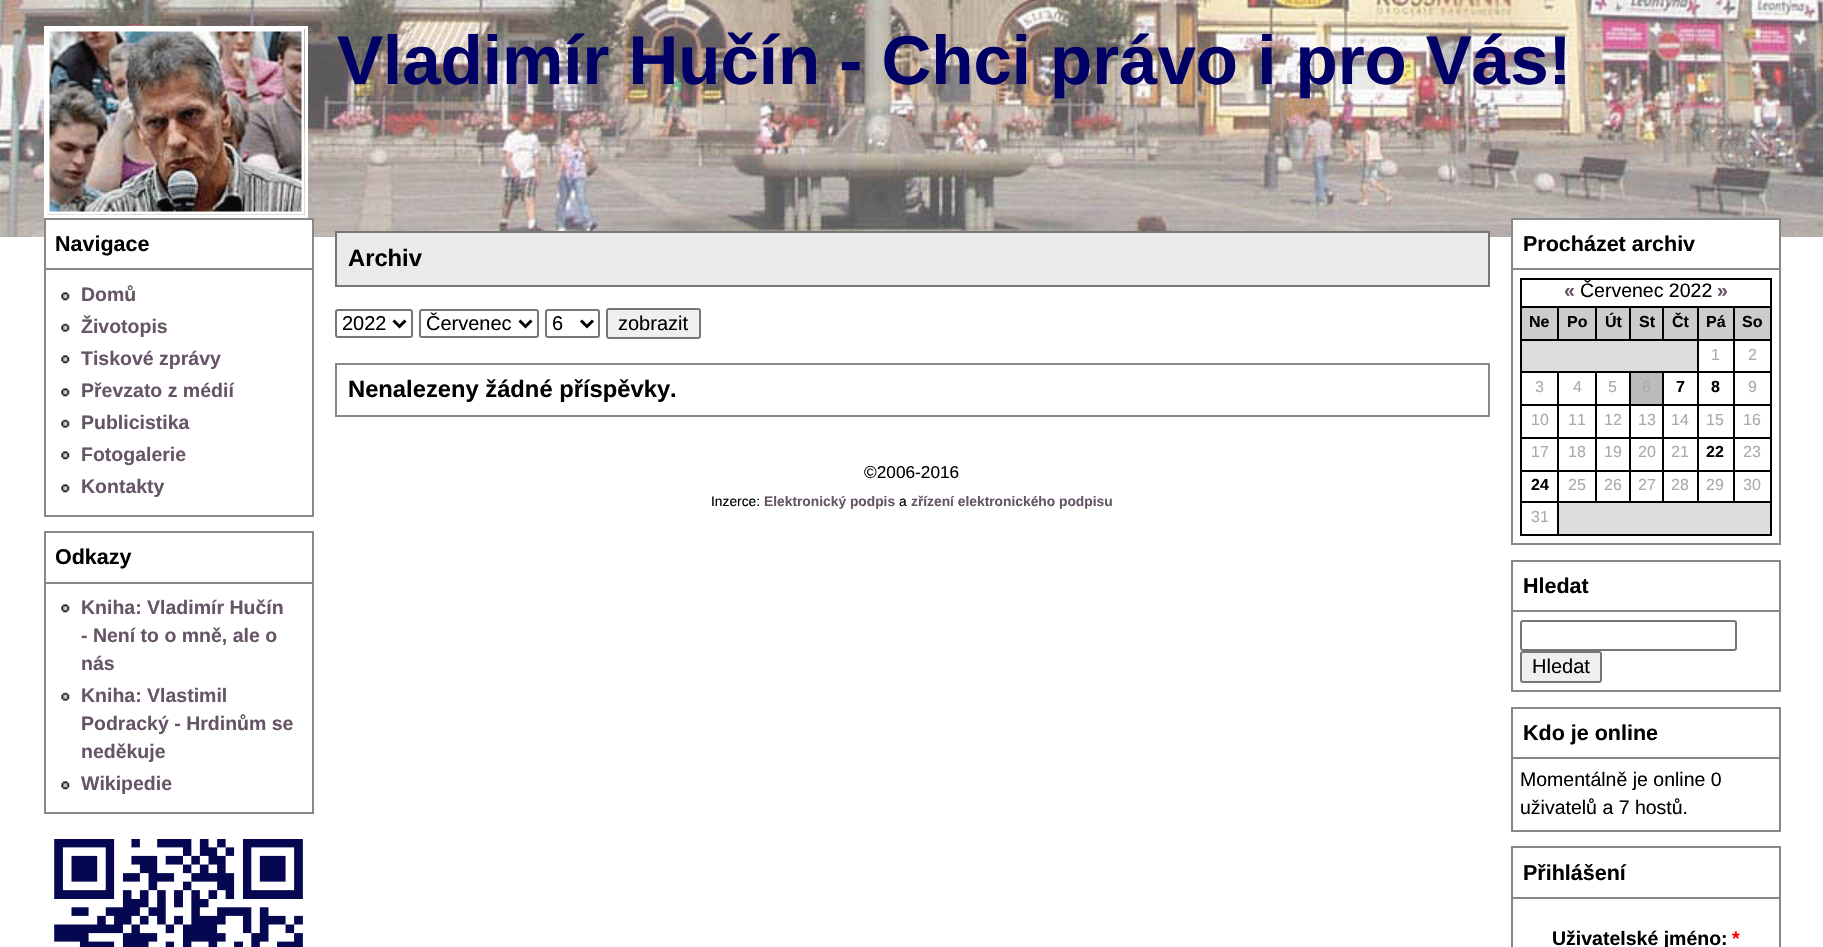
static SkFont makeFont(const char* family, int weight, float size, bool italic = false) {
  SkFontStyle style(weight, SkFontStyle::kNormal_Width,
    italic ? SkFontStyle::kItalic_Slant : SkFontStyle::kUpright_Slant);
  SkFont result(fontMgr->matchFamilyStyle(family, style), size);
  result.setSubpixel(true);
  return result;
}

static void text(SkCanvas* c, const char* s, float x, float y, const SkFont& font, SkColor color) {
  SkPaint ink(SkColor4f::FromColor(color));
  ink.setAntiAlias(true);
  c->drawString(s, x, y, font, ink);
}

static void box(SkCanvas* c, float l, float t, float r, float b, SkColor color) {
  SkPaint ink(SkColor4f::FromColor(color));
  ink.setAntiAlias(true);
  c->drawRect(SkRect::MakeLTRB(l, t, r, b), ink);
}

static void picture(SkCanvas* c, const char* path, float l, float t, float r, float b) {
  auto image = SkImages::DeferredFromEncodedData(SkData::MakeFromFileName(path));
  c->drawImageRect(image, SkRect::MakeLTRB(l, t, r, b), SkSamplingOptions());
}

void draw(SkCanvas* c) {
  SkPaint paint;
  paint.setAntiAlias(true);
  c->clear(0xffffffff);
  picture(c, "img_01.png", 0, 0, 1823, 237);
  paint.setStyle(SkPaint::kStroke_Style);
  paint.setStrokeWidth(3);
  paint.setColor(0xffffffff);
  c->drawRect(SkRect::MakeLTRB(45.5f, 27.5f, 306.5f, 216.5f), paint);
  picture(c, "img_02.png", 47, 29, 305, 215);
  SkFont face1 = makeFont("Liberation Sans", 700, 69);
  text(c, "Vladimír Hučín - Chci právo i pro Vás!", 337, 84, face1, 0xff000066);
  box(c, 46, 220, 312, 237, 0xffffffff);
  paint.setStrokeWidth(2);
  paint.setColor(0xff888888);
  c->drawRect(SkRect::MakeLTRB(45, 219, 313, 269), paint);
  SkFont face2 = makeFont("Liberation Sans", 700, 21.5f);
  text(c, "Navigace", 55, 251, face2, 0xff000000);
  box(c, 312, 270, 314, 516, 0xff888888);
  box(c, 44, 515, 314, 517, 0xff888888);
  box(c, 44, 270, 46, 516, 0xff888888);
  picture(c, "img_03.png", 61, 292, 70, 301);
  SkFont face3 = makeFont("Liberation Sans", 700, 19.5f);
  text(c, "Domů", 81, 301, face3, 0xff665566);
  picture(c, "img_04.png", 61, 323, 70, 332);
  text(c, "Životopis", 81, 333, face3, 0xff665566);
  picture(c, "img_03.png", 61, 355, 70, 364);
  text(c, "Tiskové zprávy", 81, 365, face3, 0xff665566);
  picture(c, "img_03.png", 61, 388, 70, 397);
  text(c, "Převzato z médií", 81, 397, face3, 0xff665566);
  picture(c, "img_04.png", 61, 419, 70, 428);
  text(c, "Publicistika", 81, 429, face3, 0xff665566);
  picture(c, "img_03.png", 61, 451, 70, 460);
  text(c, "Fotogalerie", 81, 461, face3, 0xff665566);
  picture(c, "img_03.png", 61, 484, 70, 493);
  text(c, "Kontakty", 81, 493, face3, 0xff665566);
  c->drawRect(SkRect::MakeLTRB(45, 532, 313, 583), paint);
  text(c, "Odkazy", 55, 564, face2, 0xff000000);
  box(c, 312, 584, 314, 813, 0xff888888);
  box(c, 44, 812, 314, 814, 0xff888888);
  box(c, 44, 584, 46, 813, 0xff888888);
  picture(c, "img_03.png", 61, 604, 70, 613);
  text(c, "Kniha: Vladimír Hučín", 81, 614, face3, 0xff665566);
  text(c, "- Není to o mně, ale o", 81, 642, face3, 0xff665566);
  text(c, "nás", 81, 670, face3, 0xff665566);
  picture(c, "img_04.png", 61, 692, 70, 701);
  text(c, "Kniha: Vlastimil", 81, 702, face3, 0xff665566);
  text(c, "Podracký - Hrdinům se", 81, 730, face3, 0xff665566);
  text(c, "neděkuje", 81, 758, face3, 0xff665566);
  picture(c, "img_03.png", 61, 781, 70, 790);
  text(c, "Wikipedie", 81, 790, face3, 0xff665566);
  picture(c, "img_05.png", 54, 839, 303, 947);
  paint.setStyle(SkPaint::kFill_Style);
  paint.setColor(0xffeaeaea);
  c->drawRect(SkRect::MakeLTRB(336, 232, 1489, 286), paint);
  paint.setStyle(SkPaint::kStroke_Style);
  paint.setColor(0xff777777);
  c->drawRect(SkRect::MakeLTRB(336, 232, 1489, 286), paint);
  SkFont face4 = makeFont("Liberation Sans", 700, 23.75f);
  text(c, "Archiv", 348, 266, face4, 0xff000000);
  paint.setColor(0xff767676);
  c->drawRoundRect(SkRect::MakeLTRB(336, 310, 412, 337), 2, 2, paint);
  paint.setStrokeWidth(3);
  paint.setColor(0xff000000);
  c->drawPath(SkPathBuilder().moveTo(393.5f, 320.5f).lineTo(399.5f, 326.5f).lineTo(405.5f, 320.5f).detach(), paint);
  SkFont face5 = makeFont("Liberation Sans", 400, 20);
  text(c, "2022", 342, 330, face5, 0xff000000);
  paint.setStrokeWidth(2);
  paint.setColor(0xff767676);
  c->drawRoundRect(SkRect::MakeLTRB(420, 310, 538, 337), 2, 2, paint);
  paint.setStrokeWidth(3);
  paint.setColor(0xff000000);
  c->drawPath(SkPathBuilder().moveTo(519.5f, 320.5f).lineTo(525.5f, 326.5f).lineTo(531.5f, 320.5f).detach(), paint);
  text(c, "Červenec", 426, 330, face5, 0xff000000);
  paint.setStrokeWidth(2);
  paint.setColor(0xff767676);
  c->drawRoundRect(SkRect::MakeLTRB(546, 310, 599, 337), 2, 2, paint);
  paint.setStrokeWidth(3);
  paint.setColor(0xff000000);
  c->drawPath(SkPathBuilder().moveTo(581, 320.5f).lineTo(587, 326.5f).lineTo(593, 320.5f).detach(), paint);
  text(c, "6", 552, 330, face5, 0xff000000);
  paint.setStyle(SkPaint::kFill_Style);
  paint.setColor(0xffefefef);
  c->drawRoundRect(SkRect::MakeLTRB(607, 309, 700, 338), 2, 2, paint);
  paint.setStyle(SkPaint::kStroke_Style);
  paint.setStrokeWidth(2);
  paint.setColor(0xff767676);
  c->drawRoundRect(SkRect::MakeLTRB(607, 309, 700, 338), 2, 2, paint);
  text(c, "zobrazit", 618, 330, face5, 0xff000000);
  paint.setColor(0xff888888);
  c->drawRect(SkRect::MakeLTRB(336, 364, 1489, 416), paint);
  text(c, "Nenalezeny žádné příspěvky.", 348, 397, face4, 0xff000000);
  SkFont face6 = makeFont("Liberation Sans", 400, 17.25f);
  text(c, "©2006-2016", 864, 478, face6, 0xff000000);
  SkFont face7 = makeFont("Liberation Sans", 400, 13.8f);
  text(c, "Inzerce:", 711, 506, face7, 0xff000000);
  SkFont face8 = makeFont("Liberation Sans", 700, 13.8f);
  text(c, "Elektronický podpis", 764, 506, face8, 0xff665566);
  text(c, "a", 899, 506, face7, 0xff000000);
  text(c, "zřízení elektronického podpisu", 911, 506, face8, 0xff665566);
  box(c, 1513, 220, 1779, 237, 0xffffffff);
  c->drawRect(SkRect::MakeLTRB(1512, 219, 1780, 269), paint);
  text(c, "Procházet archiv", 1523, 251, face2, 0xff000000);
  box(c, 1779, 270, 1781, 545, 0xff888888);
  box(c, 1511, 543, 1781, 545, 0xff888888);
  box(c, 1511, 270, 1513, 545, 0xff888888);
  box(c, 1520, 278, 1772, 280, 0xff000000);
  box(c, 1770, 278, 1772, 536, 0xff000000);
  box(c, 1520, 534, 1772, 536, 0xff000000);
  box(c, 1520, 278, 1522, 536, 0xff000000);
  text(c, "«", 1564, 297, face3, 0xff665566);
  SkFont face9 = makeFont("Liberation Sans", 400, 19.5f);
  text(c, "Červenec 2022", 1580, 297, face9, 0xff000000);
  text(c, "»", 1717, 297, face3, 0xff665566);
  box(c, 1522, 308, 1770, 339, 0xffcccccc);
  box(c, 1733, 306, 1772, 308, 0xff000000);
  box(c, 1733, 339, 1772, 341, 0xff000000);
  box(c, 1733, 371, 1772, 373, 0xff000000);
  box(c, 1733, 404, 1772, 406, 0xff000000);
  box(c, 1733, 437, 1772, 439, 0xff000000);
  box(c, 1733, 470, 1772, 472, 0xff000000);
  box(c, 1733, 501, 1772, 503, 0xff000000);
  box(c, 1733, 470, 1735, 503, 0xff000000);
  box(c, 1697, 470, 1734, 472, 0xff000000);
  box(c, 1733, 437, 1735, 471, 0xff000000);
  box(c, 1697, 437, 1734, 439, 0xff000000);
  box(c, 1733, 404, 1735, 438, 0xff000000);
  box(c, 1697, 404, 1734, 406, 0xff000000);
  box(c, 1733, 371, 1735, 405, 0xff000000);
  box(c, 1697, 371, 1734, 373, 0xff000000);
  box(c, 1733, 339, 1735, 372, 0xff000000);
  box(c, 1697, 339, 1734, 341, 0xff000000);
  box(c, 1733, 306, 1735, 341, 0xff000000);
  box(c, 1697, 306, 1734, 308, 0xff000000);
  box(c, 1697, 501, 1734, 503, 0xff000000);
  box(c, 1697, 470, 1699, 503, 0xff000000);
  box(c, 1662, 470, 1698, 472, 0xff000000);
  box(c, 1697, 437, 1699, 471, 0xff000000);
  box(c, 1662, 437, 1698, 439, 0xff000000);
  box(c, 1697, 404, 1699, 438, 0xff000000);
  box(c, 1662, 404, 1698, 406, 0xff000000);
  box(c, 1697, 371, 1699, 405, 0xff000000);
  box(c, 1662, 371, 1698, 373, 0xff000000);
  box(c, 1697, 339, 1699, 372, 0xff000000);
  box(c, 1697, 306, 1699, 341, 0xff000000);
  box(c, 1662, 306, 1698, 308, 0xff000000);
  box(c, 1662, 339, 1698, 341, 0xff000000);
  box(c, 1662, 306, 1664, 341, 0xff000000);
  box(c, 1629, 306, 1664, 308, 0xff000000);
  box(c, 1629, 339, 1664, 341, 0xff000000);
  box(c, 1629, 306, 1631, 341, 0xff000000);
  box(c, 1595, 306, 1631, 308, 0xff000000);
  box(c, 1595, 339, 1631, 341, 0xff000000);
  box(c, 1595, 306, 1597, 341, 0xff000000);
  box(c, 1557, 306, 1596, 308, 0xff000000);
  box(c, 1557, 339, 1596, 341, 0xff000000);
  box(c, 1557, 306, 1559, 341, 0xff000000);
  box(c, 1520, 306, 1559, 308, 0xff000000);
  box(c, 1520, 339, 1559, 341, 0xff000000);
  SkFont face10 = makeFont("Liberation Sans", 700, 16);
  text(c, "Ne", 1529, 327, face10, 0xff000000);
  text(c, "Po", 1567, 327, face10, 0xff000000);
  text(c, "Út", 1605, 327, face10, 0xff000000);
  text(c, "St", 1639, 327, face10, 0xff000000);
  text(c, "Čt", 1672, 327, face10, 0xff000000);
  text(c, "Pá", 1706, 327, face10, 0xff000000);
  text(c, "So", 1742, 327, face10, 0xff000000);
  box(c, 1522, 341, 1697, 371, 0xffdddddd);
  SkFont face11 = makeFont("Liberation Sans", 400, 16);
  text(c, "1", 1711, 360, face11, 0xffaaaaaa);
  text(c, "2", 1748, 360, face11, 0xffaaaaaa);
  box(c, 1662, 501, 1698, 503, 0xff000000);
  box(c, 1662, 470, 1664, 503, 0xff000000);
  box(c, 1629, 470, 1664, 472, 0xff000000);
  box(c, 1662, 437, 1664, 471, 0xff000000);
  box(c, 1629, 437, 1664, 439, 0xff000000);
  box(c, 1662, 404, 1664, 438, 0xff000000);
  box(c, 1629, 404, 1664, 406, 0xff000000);
  box(c, 1662, 371, 1664, 405, 0xff000000);
  box(c, 1629, 371, 1664, 373, 0xff000000);
  box(c, 1629, 501, 1664, 503, 0xff000000);
  box(c, 1629, 470, 1631, 503, 0xff000000);
  box(c, 1595, 470, 1631, 472, 0xff000000);
  box(c, 1629, 437, 1631, 471, 0xff000000);
  box(c, 1595, 437, 1631, 439, 0xff000000);
  box(c, 1629, 404, 1631, 438, 0xff000000);
  box(c, 1595, 404, 1631, 406, 0xff000000);
  box(c, 1629, 371, 1631, 405, 0xff000000);
  box(c, 1595, 371, 1631, 373, 0xff000000);
  box(c, 1595, 501, 1631, 503, 0xff000000);
  box(c, 1595, 470, 1597, 503, 0xff000000);
  box(c, 1557, 470, 1596, 472, 0xff000000);
  box(c, 1595, 437, 1597, 471, 0xff000000);
  box(c, 1557, 437, 1596, 439, 0xff000000);
  box(c, 1595, 404, 1597, 438, 0xff000000);
  box(c, 1557, 404, 1596, 406, 0xff000000);
  box(c, 1595, 371, 1597, 405, 0xff000000);
  box(c, 1557, 371, 1596, 373, 0xff000000);
  box(c, 1520, 501, 1559, 503, 0xff000000);
  box(c, 1557, 501, 1559, 536, 0xff000000);
  box(c, 1557, 501, 1596, 503, 0xff000000);
  box(c, 1557, 470, 1559, 503, 0xff000000);
  box(c, 1520, 470, 1559, 472, 0xff000000);
  box(c, 1557, 437, 1559, 471, 0xff000000);
  box(c, 1520, 437, 1559, 439, 0xff000000);
  box(c, 1557, 404, 1559, 438, 0xff000000);
  box(c, 1520, 404, 1559, 406, 0xff000000);
  box(c, 1557, 371, 1559, 405, 0xff000000);
  box(c, 1520, 371, 1559, 373, 0xff000000);
  text(c, "3", 1535, 392, face11, 0xffaaaaaa);
  text(c, "4", 1573, 392, face11, 0xffaaaaaa);
  text(c, "5", 1608, 392, face11, 0xffaaaaaa);
  box(c, 1631, 373, 1662, 404, 0xffbbbbbb);
  text(c, "6", 1642, 392, face11, 0xffaaaaaa);
  text(c, "7", 1676, 392, face10, 0xff000000);
  text(c, "8", 1711, 392, face10, 0xff000000);
  text(c, "9", 1748, 392, face11, 0xffaaaaaa);
  text(c, "10", 1531, 425, face11, 0xffaaaaaa);
  text(c, "11", 1568, 425, face11, 0xffaaaaaa);
  text(c, "12", 1604, 425, face11, 0xffaaaaaa);
  text(c, "13", 1638, 425, face11, 0xffaaaaaa);
  text(c, "14", 1671, 425, face11, 0xffaaaaaa);
  text(c, "15", 1706, 425, face11, 0xffaaaaaa);
  text(c, "16", 1743, 425, face11, 0xffaaaaaa);
  text(c, "17", 1531, 457, face11, 0xffaaaaaa);
  text(c, "18", 1568, 457, face11, 0xffaaaaaa);
  text(c, "19", 1604, 457, face11, 0xffaaaaaa);
  text(c, "20", 1638, 457, face11, 0xffaaaaaa);
  text(c, "21", 1671, 457, face11, 0xffaaaaaa);
  text(c, "22", 1706, 457, face10, 0xff000000);
  text(c, "23", 1743, 457, face11, 0xffaaaaaa);
  text(c, "24", 1531, 490, face10, 0xff000000);
  text(c, "25", 1568, 490, face11, 0xffaaaaaa);
  text(c, "26", 1604, 490, face11, 0xffaaaaaa);
  text(c, "27", 1638, 490, face11, 0xffaaaaaa);
  text(c, "28", 1671, 490, face11, 0xffaaaaaa);
  text(c, "29", 1706, 490, face11, 0xffaaaaaa);
  text(c, "30", 1743, 490, face11, 0xffaaaaaa);
  text(c, "31", 1531, 522, face11, 0xffaaaaaa);
  box(c, 1559, 503, 1770, 534, 0xffdddddd);
  c->drawRect(SkRect::MakeLTRB(1512, 561, 1780, 611), paint);
  text(c, "Hledat", 1523, 593, face2, 0xff000000);
  box(c, 1779, 612, 1781, 692, 0xff888888);
  box(c, 1511, 690, 1781, 692, 0xff888888);
  box(c, 1511, 612, 1513, 692, 0xff888888);
  paint.setColor(0xff767676);
  c->drawRoundRect(SkRect::MakeLTRB(1521, 621, 1736, 650), 2, 2, paint);
  paint.setStyle(SkPaint::kFill_Style);
  paint.setColor(0xffefefef);
  c->drawRoundRect(SkRect::MakeLTRB(1521, 652, 1601, 682), 2, 2, paint);
  paint.setStyle(SkPaint::kStroke_Style);
  paint.setColor(0xff767676);
  c->drawRoundRect(SkRect::MakeLTRB(1521, 652, 1601, 682), 2, 2, paint);
  text(c, "Hledat", 1532, 673, face5, 0xff000000);
  paint.setColor(0xff888888);
  c->drawRect(SkRect::MakeLTRB(1512, 708, 1780, 758), paint);
  text(c, "Kdo je online", 1523, 740, face2, 0xff000000);
  box(c, 1779, 759, 1781, 831, 0xff888888);
  box(c, 1511, 830, 1781, 832, 0xff888888);
  box(c, 1511, 759, 1513, 831, 0xff888888);
  text(c, "Momentálně je online 0", 1520, 786, face9, 0xff000000);
  text(c, "uživatelů a 7 hostů.", 1520, 814, face9, 0xff000000);
  c->drawRect(SkRect::MakeLTRB(1512, 847, 1780, 898), paint);
  text(c, "Přihlášení", 1523, 880, face2, 0xff000000);
  box(c, 1779, 899, 1781, 947, 0xff888888);
  box(c, 1511, 899, 1513, 947, 0xff888888);
  text(c, "Uživatelské jméno:", 1552, 945, face3, 0xff000000);
  text(c, "*", 1732, 945, face3, 0xffff0000);
}
